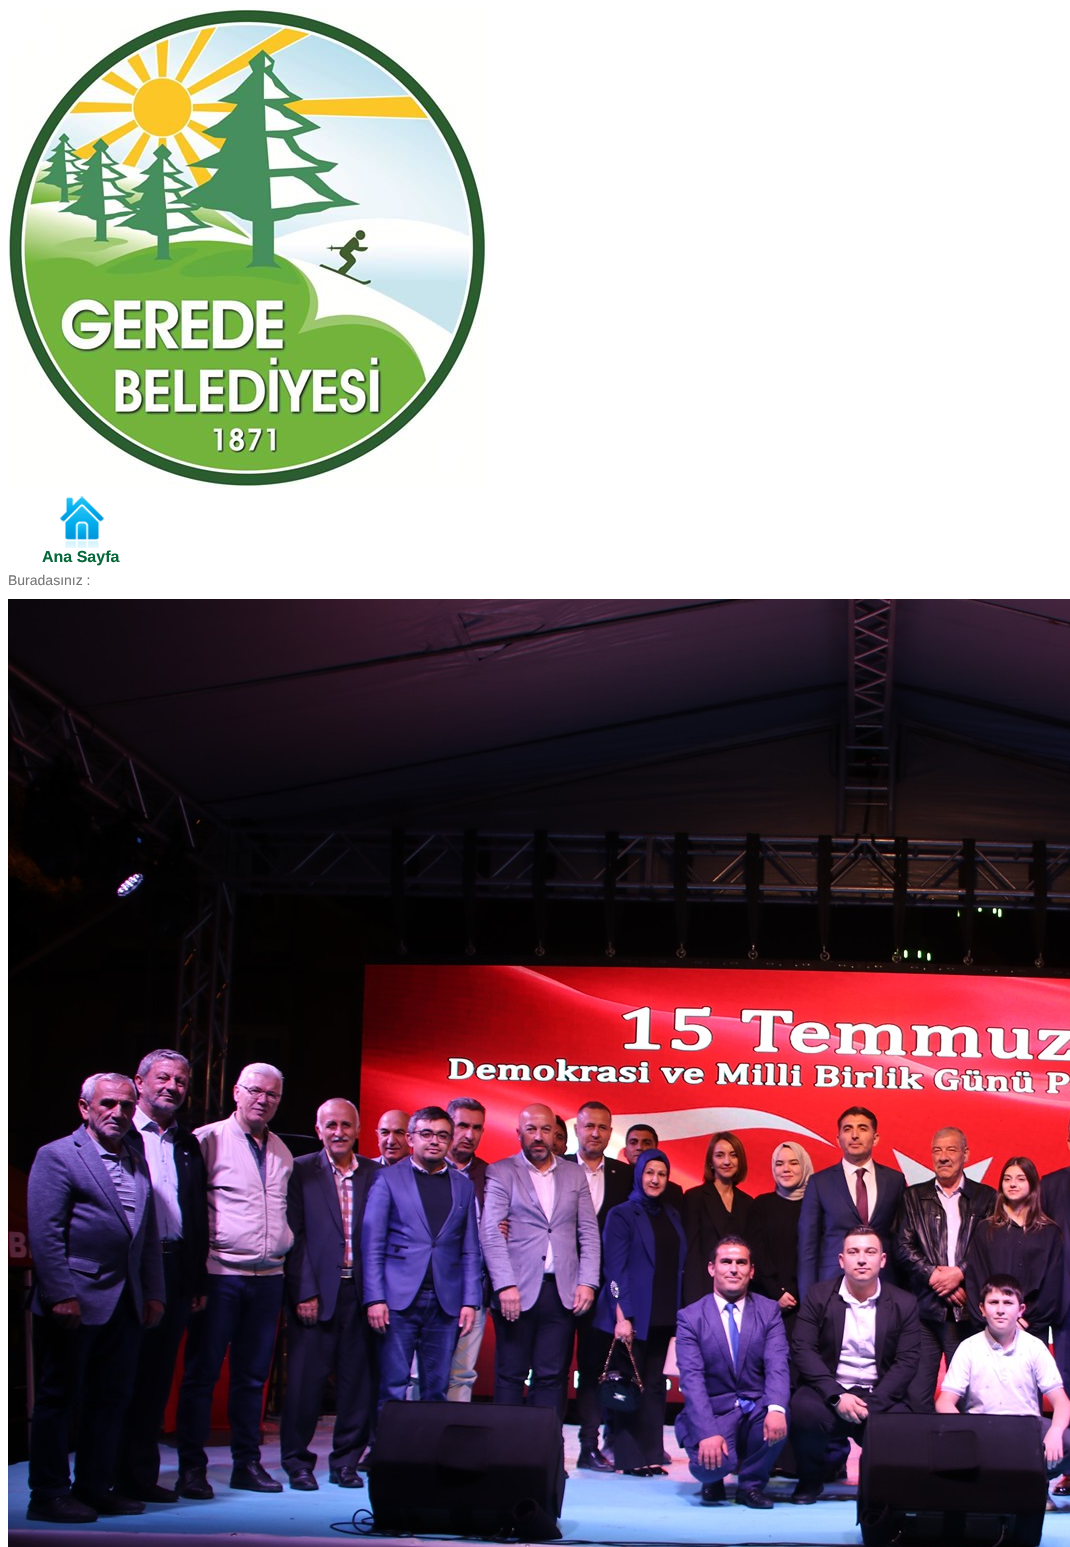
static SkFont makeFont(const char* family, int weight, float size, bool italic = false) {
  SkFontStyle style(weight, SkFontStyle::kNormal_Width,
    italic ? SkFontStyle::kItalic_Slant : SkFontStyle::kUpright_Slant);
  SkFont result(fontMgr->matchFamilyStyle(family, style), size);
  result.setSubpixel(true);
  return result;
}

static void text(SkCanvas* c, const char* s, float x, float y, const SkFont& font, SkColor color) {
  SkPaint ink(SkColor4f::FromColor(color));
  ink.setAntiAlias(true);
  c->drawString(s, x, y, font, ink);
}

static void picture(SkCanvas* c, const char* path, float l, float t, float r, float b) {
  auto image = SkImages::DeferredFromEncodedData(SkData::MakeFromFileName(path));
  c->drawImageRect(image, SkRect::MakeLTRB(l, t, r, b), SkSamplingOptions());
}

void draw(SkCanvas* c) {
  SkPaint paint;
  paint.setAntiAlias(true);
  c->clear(0xffffffff);
  picture(c, "img_01.png", 8, 8, 488, 488);
  picture(c, "img_02.png", 60, 496, 104, 548);
  SkFont face1 = makeFont("Liberation Sans", 700, 16);
  text(c, "Ana Sayfa", 42, 562, face1, 0xff056839);
  SkFont face2 = makeFont("Liberation Sans", 400, 14);
  text(c, "Buradasınız :", 8, 585, face2, 0xff777777);
  picture(c, "img_03.png", 8, 599, 1070, 1547);
}
